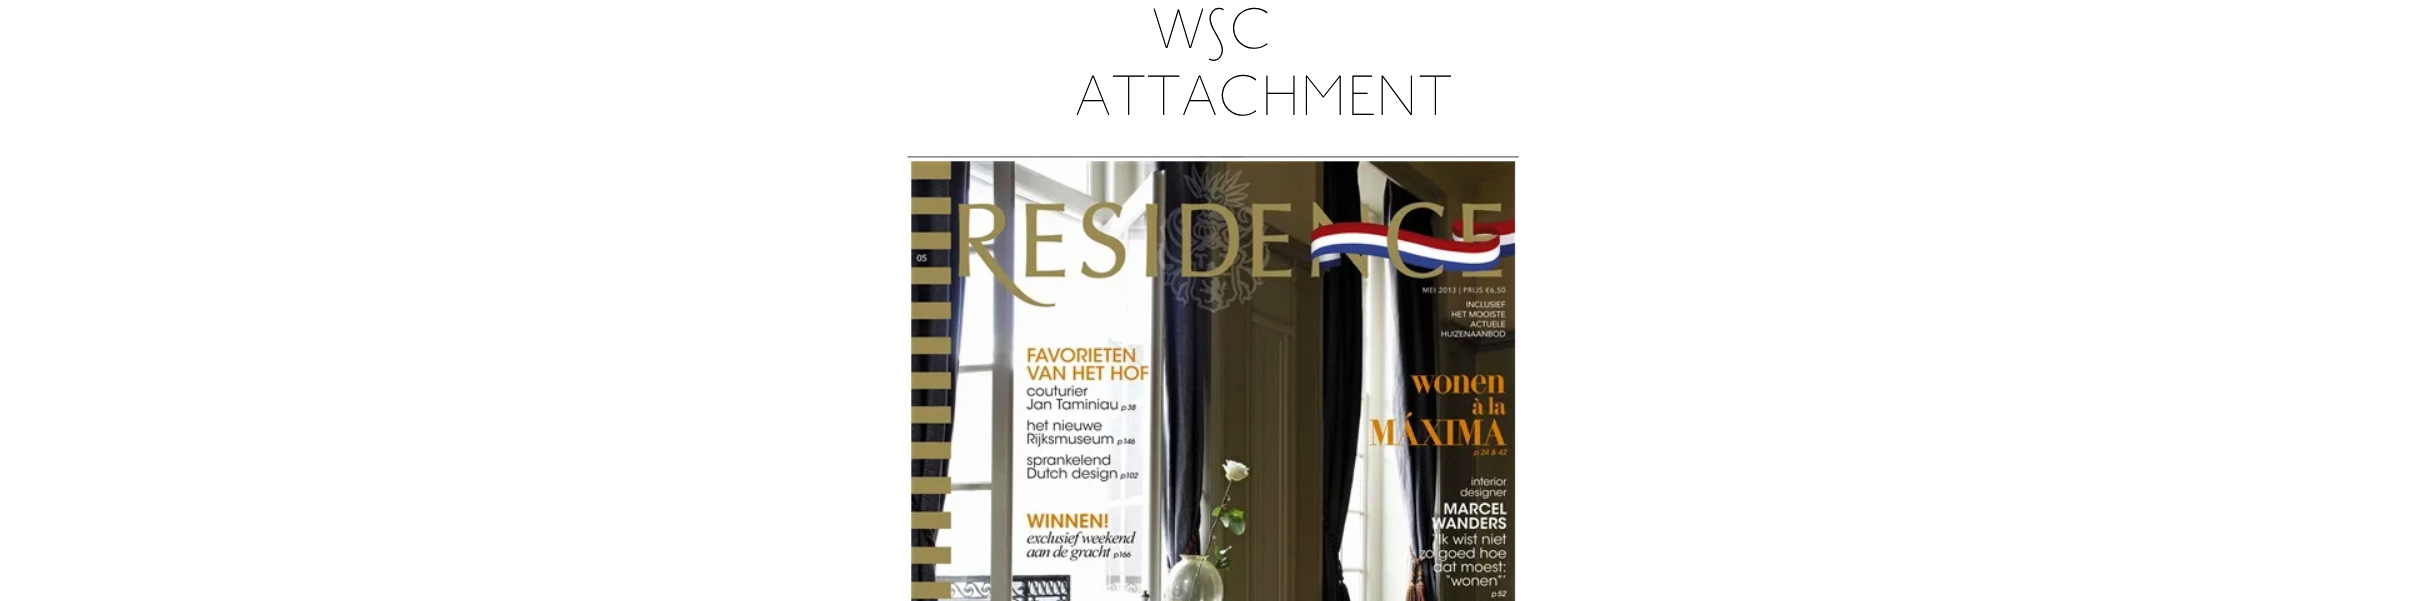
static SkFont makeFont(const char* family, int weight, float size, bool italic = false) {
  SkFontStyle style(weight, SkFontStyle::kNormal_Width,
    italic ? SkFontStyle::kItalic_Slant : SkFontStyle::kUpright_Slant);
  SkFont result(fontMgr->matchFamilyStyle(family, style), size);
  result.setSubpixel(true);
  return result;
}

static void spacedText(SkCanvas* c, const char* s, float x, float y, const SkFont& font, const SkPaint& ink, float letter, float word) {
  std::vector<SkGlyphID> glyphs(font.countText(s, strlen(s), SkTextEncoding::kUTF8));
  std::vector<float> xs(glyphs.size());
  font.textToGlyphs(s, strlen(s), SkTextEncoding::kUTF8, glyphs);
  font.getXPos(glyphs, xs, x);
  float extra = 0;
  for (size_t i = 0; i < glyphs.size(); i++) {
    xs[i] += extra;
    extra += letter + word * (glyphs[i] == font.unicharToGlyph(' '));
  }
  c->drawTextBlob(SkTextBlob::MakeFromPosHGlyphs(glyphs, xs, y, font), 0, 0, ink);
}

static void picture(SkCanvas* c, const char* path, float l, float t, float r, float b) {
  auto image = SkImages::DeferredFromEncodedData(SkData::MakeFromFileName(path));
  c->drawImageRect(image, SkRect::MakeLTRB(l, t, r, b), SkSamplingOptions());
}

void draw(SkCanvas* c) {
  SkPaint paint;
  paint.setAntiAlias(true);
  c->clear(0xffffffff);
  SkFont face1 = makeFont("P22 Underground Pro", 100, 56.25f);
  paint.setColor(0xff000000);
  spacedText(c, "W∫C", 1152, 48, face1, paint, 0.25f, 0);
  spacedText(c, "ATTACHMENT", 1075, 115, face1, paint, 0.25f, 0);
  picture(c, "img_01.png", 907, 156, 1519, 601);
}
